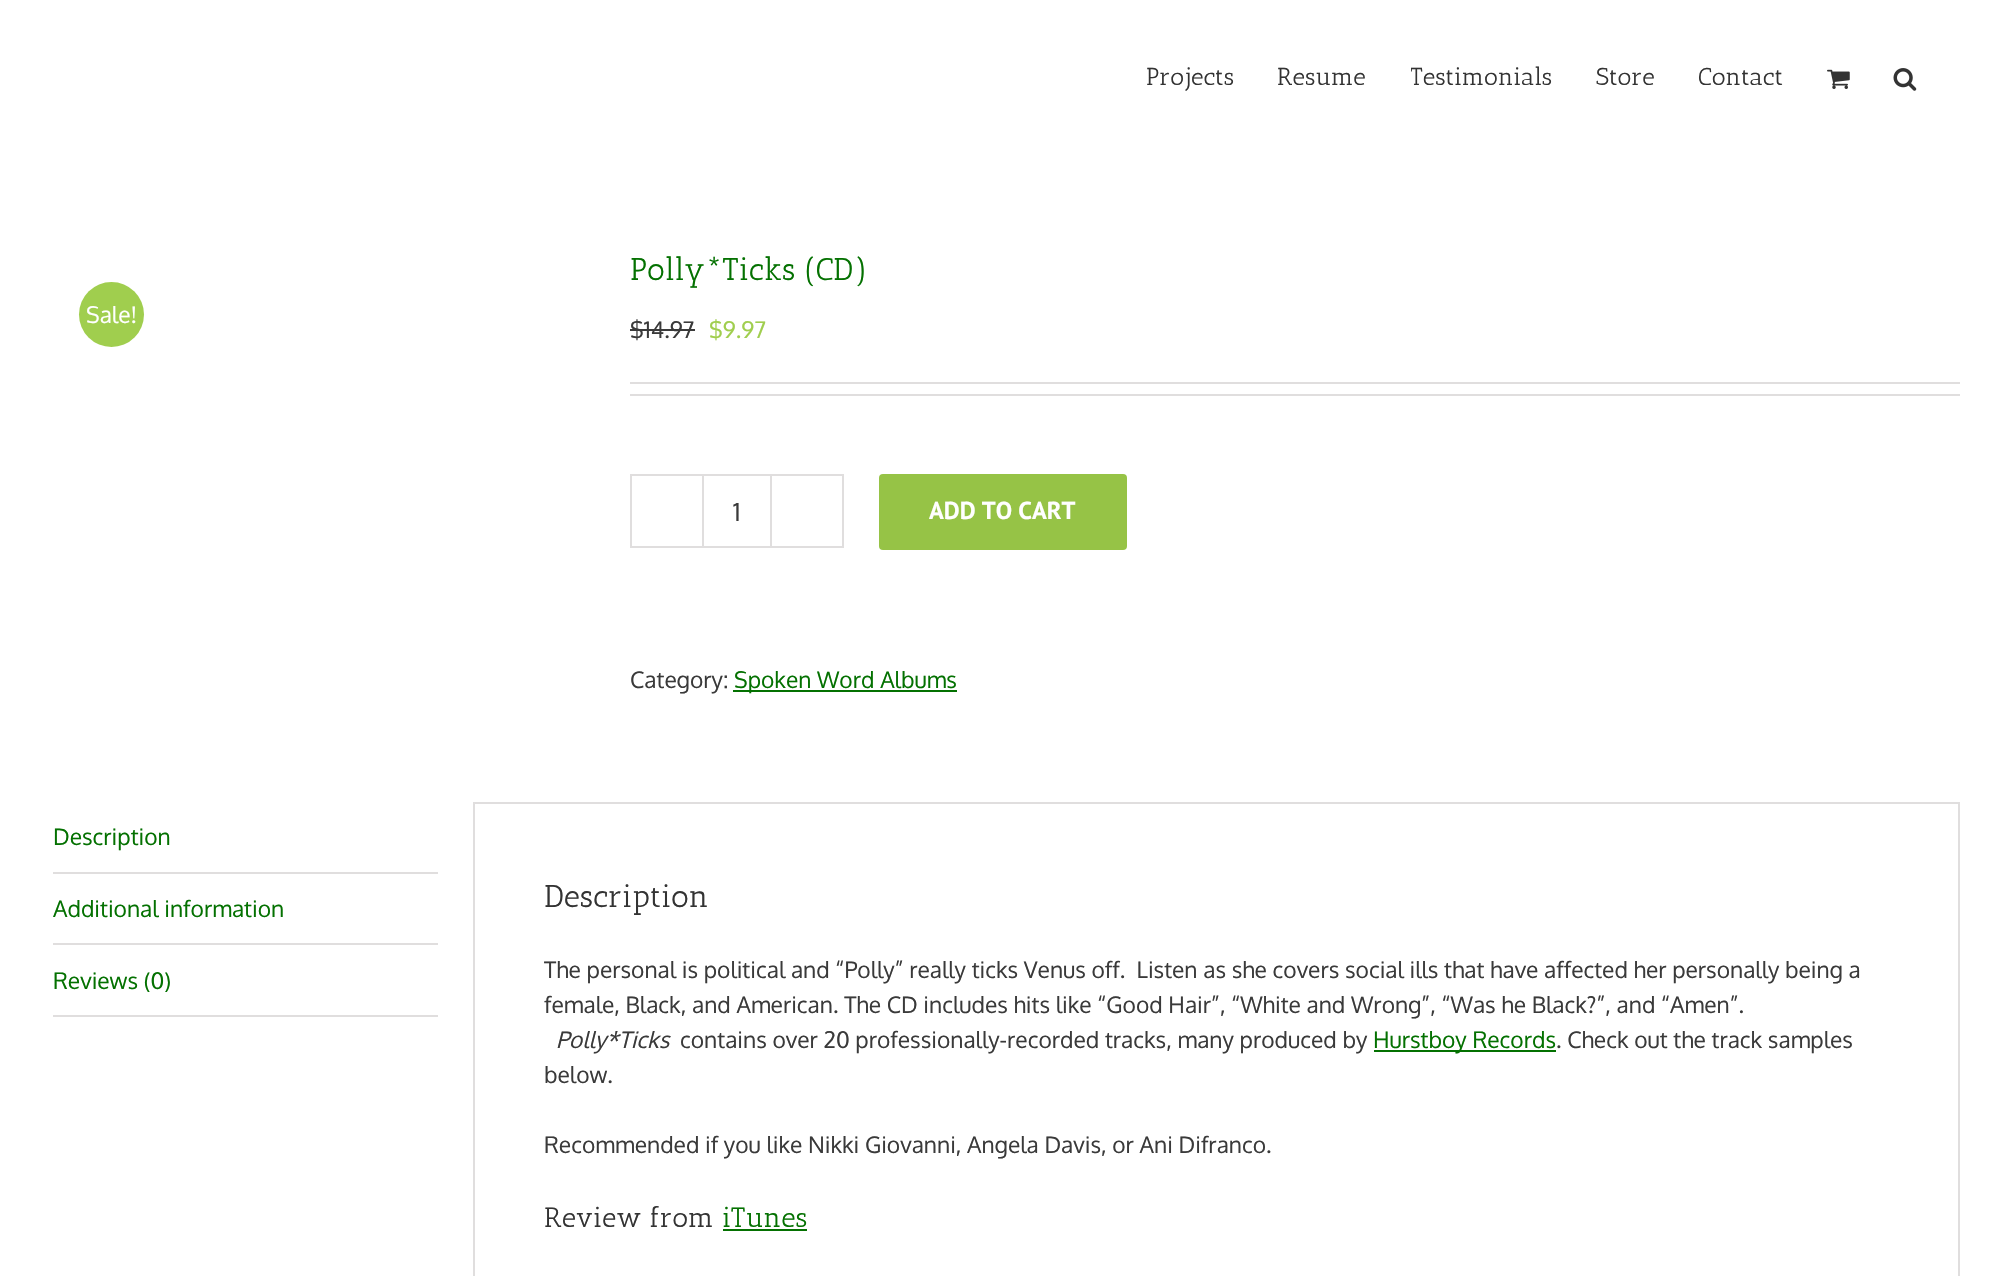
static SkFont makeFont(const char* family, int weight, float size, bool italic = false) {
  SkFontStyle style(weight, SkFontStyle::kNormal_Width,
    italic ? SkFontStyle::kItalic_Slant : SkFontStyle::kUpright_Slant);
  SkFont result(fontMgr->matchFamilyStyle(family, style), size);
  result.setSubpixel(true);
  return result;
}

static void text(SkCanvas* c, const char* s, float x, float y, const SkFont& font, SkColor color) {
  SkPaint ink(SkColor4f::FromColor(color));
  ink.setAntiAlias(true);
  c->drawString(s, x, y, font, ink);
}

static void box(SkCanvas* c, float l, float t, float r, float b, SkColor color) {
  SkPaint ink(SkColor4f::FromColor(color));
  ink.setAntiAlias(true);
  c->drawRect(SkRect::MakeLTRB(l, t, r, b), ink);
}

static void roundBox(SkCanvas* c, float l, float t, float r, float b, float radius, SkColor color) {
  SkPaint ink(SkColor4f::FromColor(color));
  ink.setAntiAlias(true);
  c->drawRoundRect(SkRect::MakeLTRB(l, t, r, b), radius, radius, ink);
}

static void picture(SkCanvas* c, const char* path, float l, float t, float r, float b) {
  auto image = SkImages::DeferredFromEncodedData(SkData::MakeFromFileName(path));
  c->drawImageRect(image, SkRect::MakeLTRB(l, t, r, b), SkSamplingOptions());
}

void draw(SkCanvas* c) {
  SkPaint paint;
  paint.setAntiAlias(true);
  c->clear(0xffffffff);
  SkFont face1 = makeFont("Antic Slab", 400, 24.5f);
  text(c, "Projects", 1146, 85, face1, 0xff333333);
  text(c, "Resume", 1277, 85, face1, 0xff333333);
  c->save();
  c->clipRect(SkRect::MakeLTRB(1411, 0, 1596, 151));
  text(c, "Testimonials", 1410, 85, face1, 0xff333333);
  c->restore();
  text(c, "Store", 1596, 85, face1, 0xff333333);
  text(c, "Contact", 1698, 85, face1, 0xff333333);
  picture(c, "img_01.png", 1827, 69, 1850, 89);
  picture(c, "img_02.png", 1893, 68, 1917, 91);
  paint.setColor(0xffa0ce4e);
  c->drawCircle(111.5f, 314.5f, 32.5f, paint);
  SkFont face2 = makeFont("Oxygen", 400, 22.75f);
  text(c, "Sale!", 86, 323, face2, 0xffffffff);
  SkFont face3 = makeFont("Antic Slab", 400, 31.5f);
  text(c, "Polly*Ticks (CD)", 630, 280, face3, 0xff047101);
  text(c, "$14.97", 630, 338, face2, 0xff3a3a3a);
  box(c, 630, 329, 695, 331, 0xff3a3a3a);
  text(c, "$9.97", 709, 338, face2, 0xffa0ce4e);
  box(c, 630, 382, 1960, 384, 0xffe0dede);
  box(c, 630, 394, 1960, 396, 0xffe0dede);
  paint.setStyle(SkPaint::kStroke_Style);
  paint.setStrokeWidth(2);
  paint.setColor(0xffe0dede);
  c->drawRect(SkRect::MakeLTRB(631, 475, 843, 547), paint);
  box(c, 770, 476, 772, 546, 0xffe0dede);
  box(c, 702, 476, 704, 546, 0xffe0dede);
  SkFont face4 = makeFont("Oxygen", 400, 24.5f);
  text(c, "1", 733, 521, face4, 0xff3a3a3a);
  roundBox(c, 879, 474, 1127, 550, 4, 0xff96c346);
  SkFont face5 = makeFont("PT Sans", 700, 24.5f);
  text(c, "ADD TO CART", 929, 519, face5, 0xffffffff);
  text(c, "Category:", 630, 688, face2, 0xff3a3a3a);
  box(c, 733, 690, 957, 692, 0xff047101);
  text(c, "Spoken Word Albums", 734, 688, face2, 0xff047101);
  box(c, 53, 872, 438, 874, 0xffe0dede);
  text(c, "Description", 53, 845, face2, 0xff047101);
  box(c, 53, 943, 438, 945, 0xffe0dede);
  text(c, "Additional information", 53, 917, face2, 0xff047101);
  box(c, 53, 1015, 438, 1017, 0xffe0dede);
  text(c, "Reviews (0)", 53, 989, face2, 0xff047101);
  c->drawRect(SkRect::MakeLTRB(474, 803, 1959, 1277), paint);
  text(c, "Description", 544, 907, face3, 0xff333333);
  text(c, "The personal is political and “Polly” really ticks Venus off.  Listen as she covers social ills that have affected her personally being a", 544, 978, face2, 0xff3a3a3a);
  text(c, "female, Black, and American. The CD includes hits like “Good Hair”, “White and Wrong”, “Was he Black?”, and “Amen”.", 544, 1013, face2, 0xff3a3a3a);
  SkFont face6 = makeFont("Oxygen", 400, 22.75f, true);
  text(c, "Polly*Ticks", 556, 1048, face6, 0xff3a3a3a);
  text(c, "contains over 20 professionally-recorded tracks, many produced by", 680, 1048, face2, 0xff3a3a3a);
  box(c, 1374, 1050, 1556, 1052, 0xff047101);
  text(c, "Hurstboy Records", 1373, 1048, face2, 0xff047101);
  text(c, ". Check out the track samples", 1556, 1048, face2, 0xff3a3a3a);
  text(c, "below.", 544, 1083, face2, 0xff3a3a3a);
  text(c, "Recommended if you like Nikki Giovanni, Angela Davis, or Ani Difranco.", 544, 1153, face2, 0xff3a3a3a);
  SkFont face7 = makeFont("Antic Slab", 400, 28);
  text(c, "Review from", 544, 1227, face7, 0xff333333);
  text(c, "iTunes", 722, 1227, face7, 0xff047101);
  box(c, 723, 1229, 807, 1231, 0xff047101);
}
